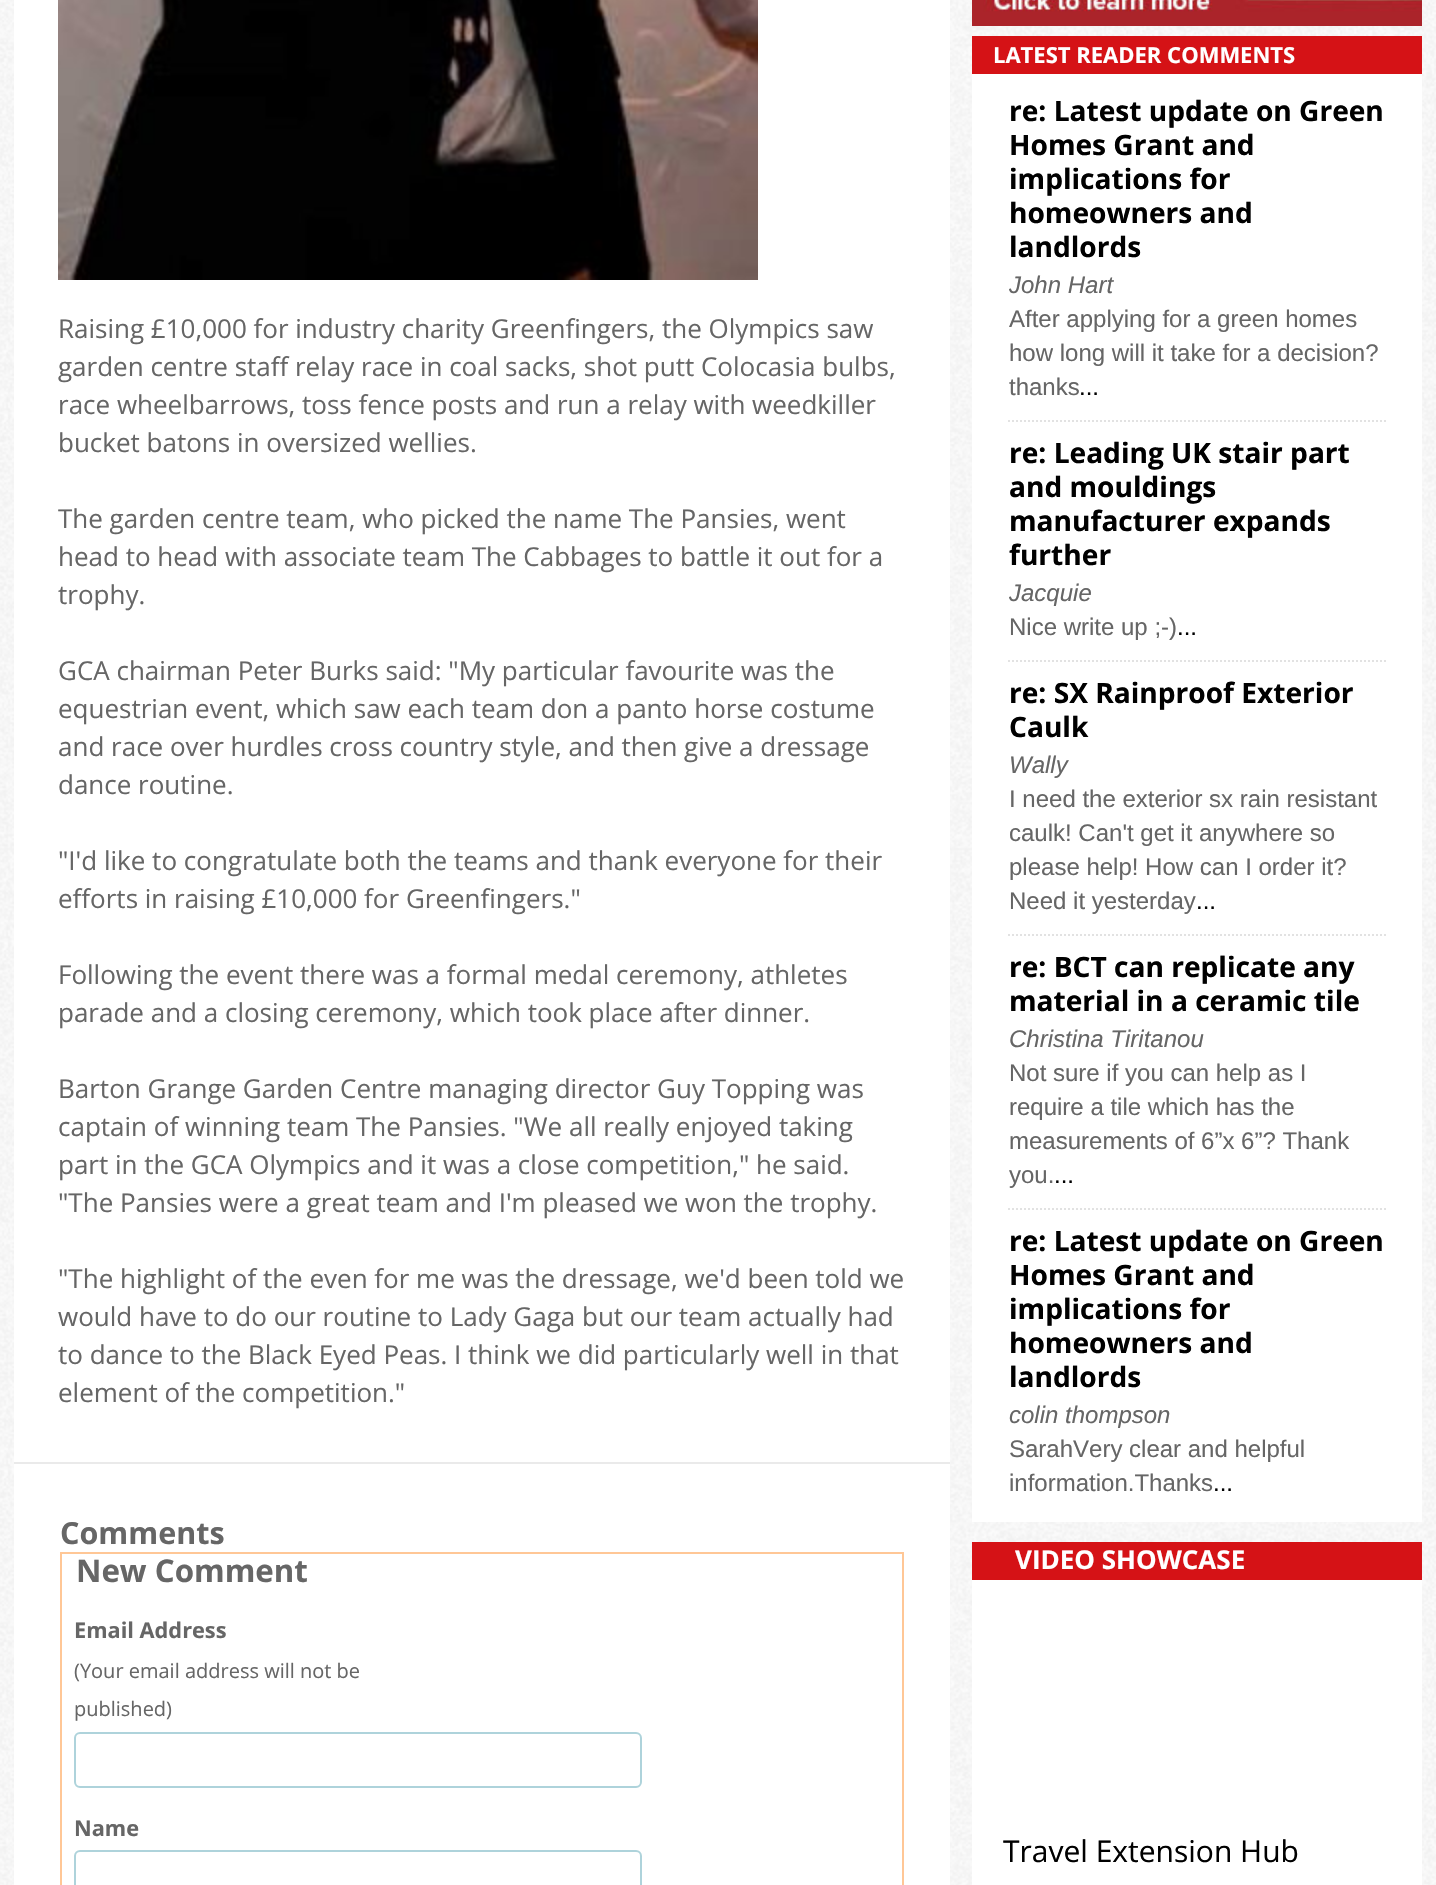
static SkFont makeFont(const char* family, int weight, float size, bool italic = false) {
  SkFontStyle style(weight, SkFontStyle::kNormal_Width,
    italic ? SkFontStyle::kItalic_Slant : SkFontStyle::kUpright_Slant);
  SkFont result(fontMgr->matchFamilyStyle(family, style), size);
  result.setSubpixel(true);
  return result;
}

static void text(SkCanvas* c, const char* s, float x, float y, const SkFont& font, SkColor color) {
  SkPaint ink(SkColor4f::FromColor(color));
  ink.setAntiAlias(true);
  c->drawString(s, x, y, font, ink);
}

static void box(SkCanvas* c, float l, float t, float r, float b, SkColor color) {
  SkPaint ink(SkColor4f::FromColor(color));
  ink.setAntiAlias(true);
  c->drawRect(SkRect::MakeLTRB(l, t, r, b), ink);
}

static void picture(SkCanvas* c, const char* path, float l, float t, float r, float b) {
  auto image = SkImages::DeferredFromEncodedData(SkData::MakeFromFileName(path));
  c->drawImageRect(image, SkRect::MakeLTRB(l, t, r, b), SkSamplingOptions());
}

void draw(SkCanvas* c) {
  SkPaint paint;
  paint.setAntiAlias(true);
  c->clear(0xffffffff);
  picture(c, "img_01.png", 0, 0, 1436, 1885);
  box(c, 14, 0, 950, 1885, 0xffffffff);
  picture(c, "img_02.png", 58, 0, 758, 280);
  SkFont face1 = makeFont("Open Sans", 400, 26);
  text(c, "Raising £10,000 for industry charity Greenfingers, the Olympics saw", 58, 338, face1, 0xff666666);
  text(c, "garden centre staff relay race in coal sacks, shot putt Colocasia bulbs,", 58, 376, face1, 0xff666666);
  text(c, "race wheelbarrows, toss fence posts and run a relay with weedkiller", 58, 414, face1, 0xff666666);
  text(c, "bucket batons in oversized wellies.", 58, 452, face1, 0xff666666);
  text(c, "The garden centre team, who picked the name The Pansies, went", 58, 528, face1, 0xff666666);
  text(c, "head to head with associate team The Cabbages to battle it out for a", 58, 566, face1, 0xff666666);
  text(c, "trophy.", 58, 604, face1, 0xff666666);
  text(c, "GCA chairman Peter Burks said: \"My particular favourite was the", 58, 680, face1, 0xff666666);
  text(c, "equestrian event, which saw each team don a panto horse costume", 58, 718, face1, 0xff666666);
  text(c, "and race over hurdles cross country style, and then give a dressage", 58, 756, face1, 0xff666666);
  text(c, "dance routine.", 58, 794, face1, 0xff666666);
  text(c, "\"I'd like to congratulate both the teams and thank everyone for their", 58, 870, face1, 0xff666666);
  text(c, "efforts in raising £10,000 for Greenfingers.\"", 58, 908, face1, 0xff666666);
  text(c, "Following the event there was a formal medal ceremony, athletes", 58, 984, face1, 0xff666666);
  text(c, "parade and a closing ceremony, which took place after dinner.", 58, 1022, face1, 0xff666666);
  text(c, "Barton Grange Garden Centre managing director Guy Topping was", 58, 1098, face1, 0xff666666);
  text(c, "captain of winning team The Pansies. \"We all really enjoyed taking", 58, 1136, face1, 0xff666666);
  text(c, "part in the GCA Olympics and it was a close competition,\" he said.", 58, 1174, face1, 0xff666666);
  text(c, "\"The Pansies were a great team and I'm pleased we won the trophy.", 58, 1212, face1, 0xff666666);
  text(c, "\"The highlight of the even for me was the dressage, we'd been told we", 58, 1288, face1, 0xff666666);
  text(c, "would have to do our routine to Lady Gaga but our team actually had", 58, 1326, face1, 0xff666666);
  text(c, "to dance to the Black Eyed Peas. I think we did particularly well in that", 58, 1364, face1, 0xff666666);
  text(c, "element of the competition.\"", 58, 1402, face1, 0xff666666);
  box(c, 14, 1462, 950, 1464, 0xffeaeaea);
  SkFont face2 = makeFont("Open Sans", 700, 30.5f);
  text(c, "Comments", 60, 1544, face2, 0xff666666);
  paint.setStyle(SkPaint::kStroke_Style);
  paint.setStrokeWidth(2);
  paint.setColor(0xffffc796);
  c->drawRect(SkRect::MakeLTRB(61, 1553, 903, 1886), paint);
  SkFont face3 = makeFont("Open Sans", 700, 31.25f);
  text(c, "New Comment", 76, 1582, face3, 0xff666666);
  SkFont face4 = makeFont("Open Sans", 700, 21.75f);
  text(c, "Email Address", 74, 1638, face4, 0xff666666);
  SkFont face5 = makeFont("Open Sans", 400, 20);
  text(c, "(Your email address will not be", 74, 1678, face5, 0xff666666);
  text(c, "published)", 74, 1716, face5, 0xff666666);
  paint.setColor(0xffaed3db);
  c->drawRoundRect(SkRect::MakeLTRB(75, 1733, 641, 1787), 5, 5, paint);
  text(c, "Name", 74, 1836, face4, 0xff666666);
  c->drawRoundRect(SkRect::MakeLTRB(75, 1851, 641, 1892), 5, 5, paint);
  picture(c, "img_03.png", 972, 0, 1422, 26);
  box(c, 972, 74, 1422, 1522, 0xffffffff);
  box(c, 972, 36, 1422, 74, 0xffd51216);
  SkFont face6 = makeFont("Open Sans", 700, 22);
  text(c, "LATEST READER COMMENTS", 993, 63, face6, 0xffffffff);
  SkFont face7 = makeFont("Open Sans", 700, 28.1f);
  text(c, "re: Latest update on Green", 1009, 121, face7, 0xff000000);
  text(c, "Homes Grant and", 1009, 155, face7, 0xff000000);
  text(c, "implications for", 1009, 189, face7, 0xff000000);
  text(c, "homeowners and", 1009, 223, face7, 0xff000000);
  text(c, "landlords", 1009, 257, face7, 0xff000000);
  SkFont face8 = makeFont("Liberation Sans", 400, 24, true);
  text(c, "John Hart", 1009, 293, face8, 0xff666666);
  SkFont face9 = makeFont("Liberation Sans", 400, 24);
  text(c, "After applying for a green homes", 1009, 327, face9, 0xff666666);
  text(c, "how long will it take for a decision?", 1009, 361, face9, 0xff666666);
  text(c, "thanks", 1009, 395, face9, 0xff666666);
  text(c, "...", 1079, 395, face9, 0xff000000);
  paint.setColor(0xffe2e2e2);
  paint.setPathEffect(SkDashPathEffect::Make({{2, 2}}, 0));
  c->drawPath(SkPathBuilder().moveTo(1008, 421).lineTo(1386, 421).detach(), paint);
  paint.setPathEffect(nullptr);
  text(c, "re: Leading UK stair part", 1009, 463, face7, 0xff000000);
  text(c, "and mouldings", 1009, 497, face7, 0xff000000);
  text(c, "manufacturer expands", 1009, 531, face7, 0xff000000);
  text(c, "further", 1009, 565, face7, 0xff000000);
  text(c, "Jacquie", 1009, 601, face8, 0xff666666);
  text(c, "Nice write up ;-)", 1009, 635, face9, 0xff666666);
  text(c, "...", 1177, 635, face9, 0xff000000);
  paint.setPathEffect(SkDashPathEffect::Make({{2, 2}}, 0));
  c->drawPath(SkPathBuilder().moveTo(1008, 661).lineTo(1386, 661).detach(), paint);
  paint.setPathEffect(nullptr);
  text(c, "re: SX Rainproof Exterior", 1009, 703, face7, 0xff000000);
  text(c, "Caulk", 1009, 737, face7, 0xff000000);
  text(c, "Wally", 1009, 773, face8, 0xff666666);
  text(c, "I need the exterior sx rain resistant", 1009, 807, face9, 0xff666666);
  text(c, "caulk! Can't get it anywhere so", 1009, 841, face9, 0xff666666);
  text(c, "please help! How can I order it?", 1009, 875, face9, 0xff666666);
  text(c, "Need it yesterday", 1009, 909, face9, 0xff666666);
  text(c, "...", 1196, 909, face9, 0xff000000);
  paint.setPathEffect(SkDashPathEffect::Make({{2, 2}}, 0));
  c->drawPath(SkPathBuilder().moveTo(1008, 935).lineTo(1386, 935).detach(), paint);
  paint.setPathEffect(nullptr);
  text(c, "re: BCT can replicate any", 1009, 977, face7, 0xff000000);
  text(c, "material in a ceramic tile", 1009, 1011, face7, 0xff000000);
  text(c, "Christina Tiritanou", 1009, 1047, face8, 0xff666666);
  text(c, "Not sure if you can help as I", 1009, 1081, face9, 0xff666666);
  text(c, "require a tile which has the", 1009, 1115, face9, 0xff666666);
  text(c, "measurements of 6”x 6”? Thank", 1009, 1149, face9, 0xff666666);
  text(c, "you.", 1009, 1183, face9, 0xff666666);
  text(c, "...", 1054, 1183, face9, 0xff000000);
  paint.setPathEffect(SkDashPathEffect::Make({{2, 2}}, 0));
  c->drawPath(SkPathBuilder().moveTo(1008, 1209).lineTo(1386, 1209).detach(), paint);
  paint.setPathEffect(nullptr);
  text(c, "re: Latest update on Green", 1009, 1251, face7, 0xff000000);
  text(c, "Homes Grant and", 1009, 1285, face7, 0xff000000);
  text(c, "implications for", 1009, 1319, face7, 0xff000000);
  text(c, "homeowners and", 1009, 1353, face7, 0xff000000);
  text(c, "landlords", 1009, 1387, face7, 0xff000000);
  text(c, "colin thompson", 1009, 1423, face8, 0xff666666);
  text(c, "SarahVery clear and helpful", 1009, 1457, face9, 0xff666666);
  text(c, "information.Thanks", 1009, 1491, face9, 0xff666666);
  text(c, "...", 1213, 1491, face9, 0xff000000);
  box(c, 972, 1580, 1422, 1885, 0xffffffff);
  box(c, 972, 1542, 1422, 1580, 0xffd51216);
  SkFont face10 = makeFont("Open Sans", 700, 26);
  text(c, "VIDEO SHOWCASE", 1015, 1569, face10, 0xffffffff);
  SkFont face11 = makeFont("Open Sans", 400, 30);
  text(c, "Travel Extension Hub", 1003, 1862, face11, 0xff000000);
}
